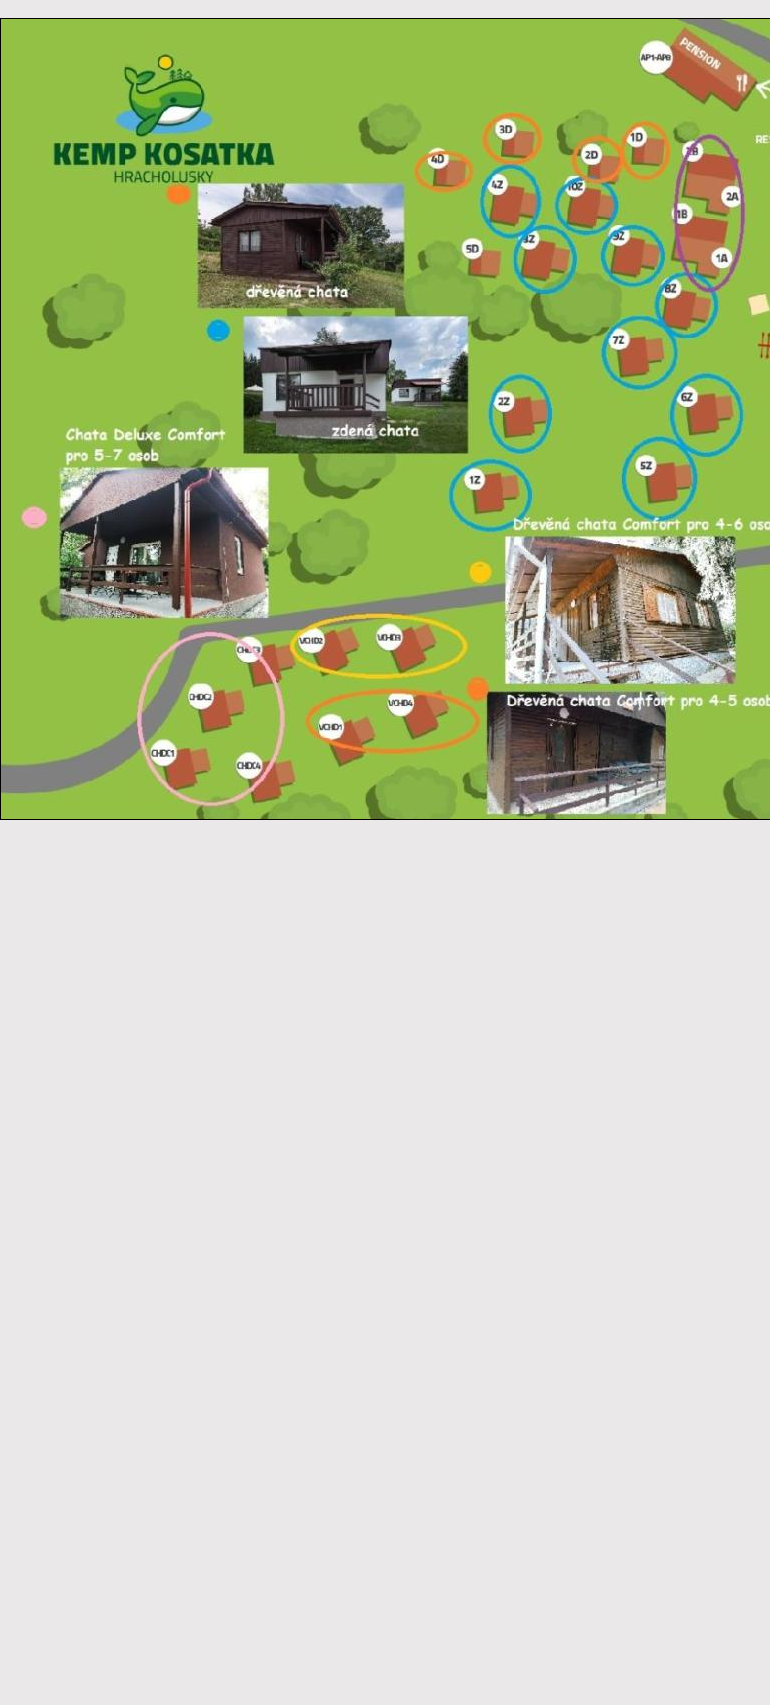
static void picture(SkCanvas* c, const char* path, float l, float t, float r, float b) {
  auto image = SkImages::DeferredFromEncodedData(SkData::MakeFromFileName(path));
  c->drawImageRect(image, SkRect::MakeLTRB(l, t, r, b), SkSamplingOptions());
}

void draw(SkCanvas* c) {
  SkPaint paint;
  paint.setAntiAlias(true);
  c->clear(0xffeae8e8);
  paint.setStyle(SkPaint::kStroke_Style);
  paint.setStrokeWidth(1);
  paint.setColor(0xff000000);
  c->drawRect(SkRect::MakeLTRB(0.5f, 18.5f, 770.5f, 819.5f), paint);
  picture(c, "img_01.png", 1, 19, 770, 819);
}
